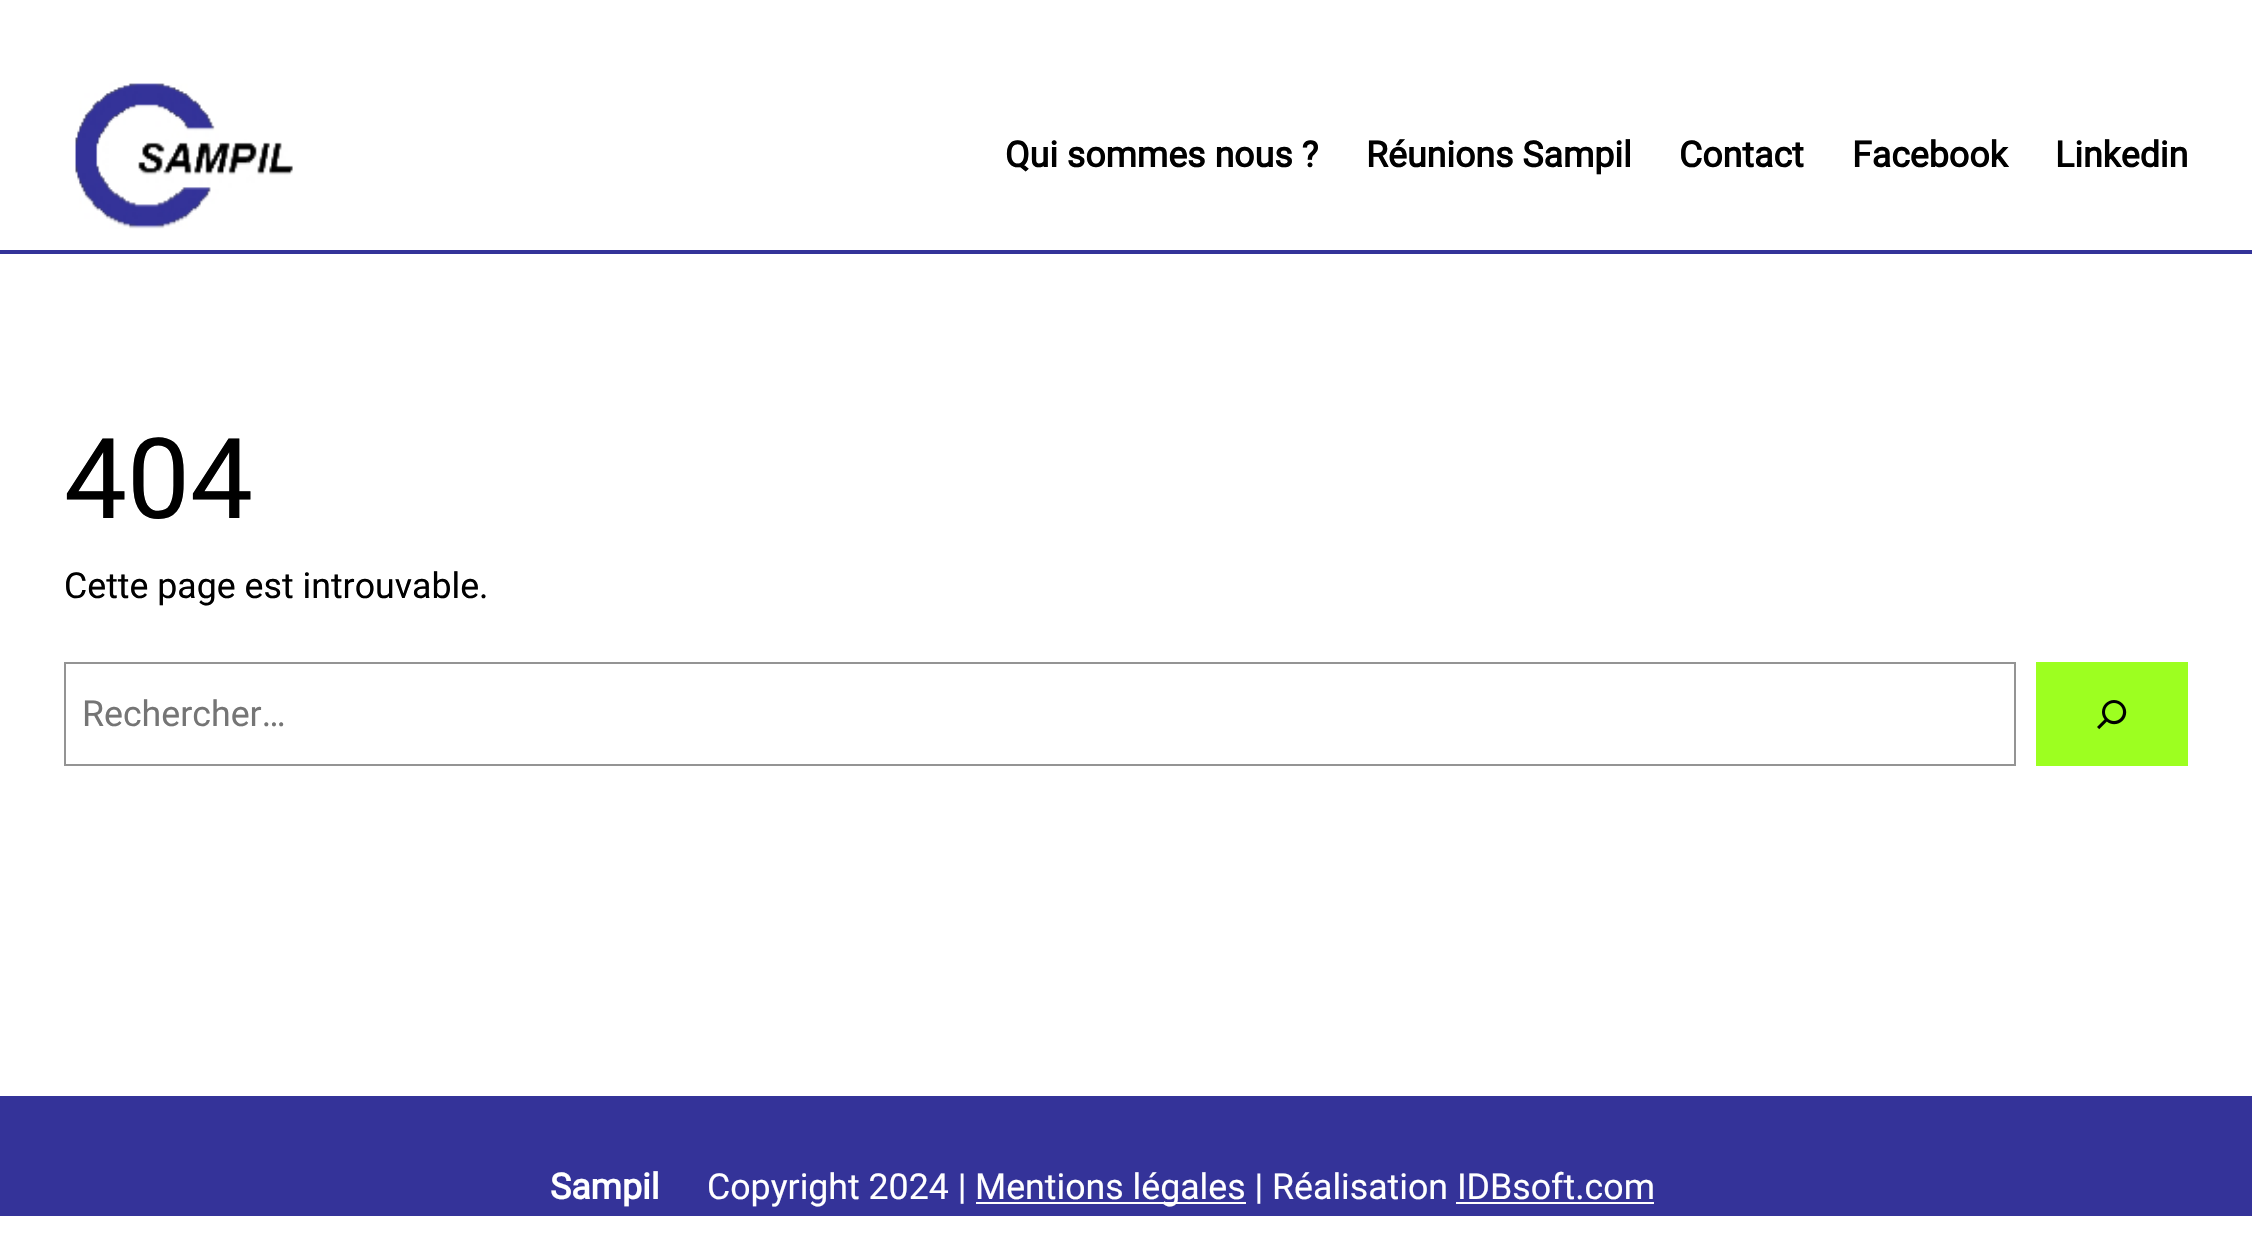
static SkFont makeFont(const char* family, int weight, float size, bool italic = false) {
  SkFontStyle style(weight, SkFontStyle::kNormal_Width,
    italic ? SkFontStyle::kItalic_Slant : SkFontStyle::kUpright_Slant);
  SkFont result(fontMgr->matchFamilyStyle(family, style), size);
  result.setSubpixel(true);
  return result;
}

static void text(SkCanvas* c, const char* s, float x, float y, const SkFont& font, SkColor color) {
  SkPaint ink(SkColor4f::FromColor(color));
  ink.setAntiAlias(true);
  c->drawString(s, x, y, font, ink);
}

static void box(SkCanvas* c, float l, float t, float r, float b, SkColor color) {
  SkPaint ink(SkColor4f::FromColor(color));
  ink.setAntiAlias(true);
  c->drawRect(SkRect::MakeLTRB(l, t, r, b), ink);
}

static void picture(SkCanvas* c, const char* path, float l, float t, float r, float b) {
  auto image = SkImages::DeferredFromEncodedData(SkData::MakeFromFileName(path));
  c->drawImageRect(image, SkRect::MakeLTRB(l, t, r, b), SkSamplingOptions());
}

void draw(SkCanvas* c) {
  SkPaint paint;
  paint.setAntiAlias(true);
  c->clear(0xffffffff);
  picture(c, "img_01.png", 75, 83, 293, 229);
  SkFont face1 = makeFont("Roboto", 700, 35.7f);
  text(c, "Qui sommes nous ?", 1005, 167, face1, 0xff000000);
  text(c, "Réunions Sampil", 1366, 167, face1, 0xff000000);
  text(c, "Contact", 1679, 167, face1, 0xff000000);
  text(c, "Facebook", 1852, 167, face1, 0xff000000);
  text(c, "Linkedin", 2055, 167, face1, 0xff000000);
  box(c, 0, 250, 2252, 254, 0xff343399);
  SkFont face2 = makeFont("Roboto", 400, 112);
  text(c, "404", 64, 518, face2, 0xff000000);
  SkFont face3 = makeFont("Roboto", 400, 35.7f);
  text(c, "Cette page est introuvable.", 64, 598, face3, 0xff000000);
  paint.setStyle(SkPaint::kStroke_Style);
  paint.setStrokeWidth(2);
  paint.setColor(0xff949494);
  c->drawRect(SkRect::MakeLTRB(65, 663, 2015, 765), paint);
  text(c, "Rechercher…", 82, 726, face3, 0xff757575);
  box(c, 2036, 662, 2188, 766, 0xff9dff20);
  picture(c, "img_02.png", 2097, 700, 2127, 730);
  box(c, 0, 1096, 2252, 1216, 0xff343399);
  text(c, "Sampil", 550, 1199, face1, 0xffffffff);
  text(c, "Copyright 2024 |", 707, 1199, face3, 0xffffffff);
  box(c, 976, 1202, 1246, 1204, 0xffffffff);
  text(c, "Mentions légales | Réalisation IDBsoft.com", 975, 1199, face3, 0xffffffff);
  box(c, 1456, 1202, 1654, 1204, 0xffffffff);
}
